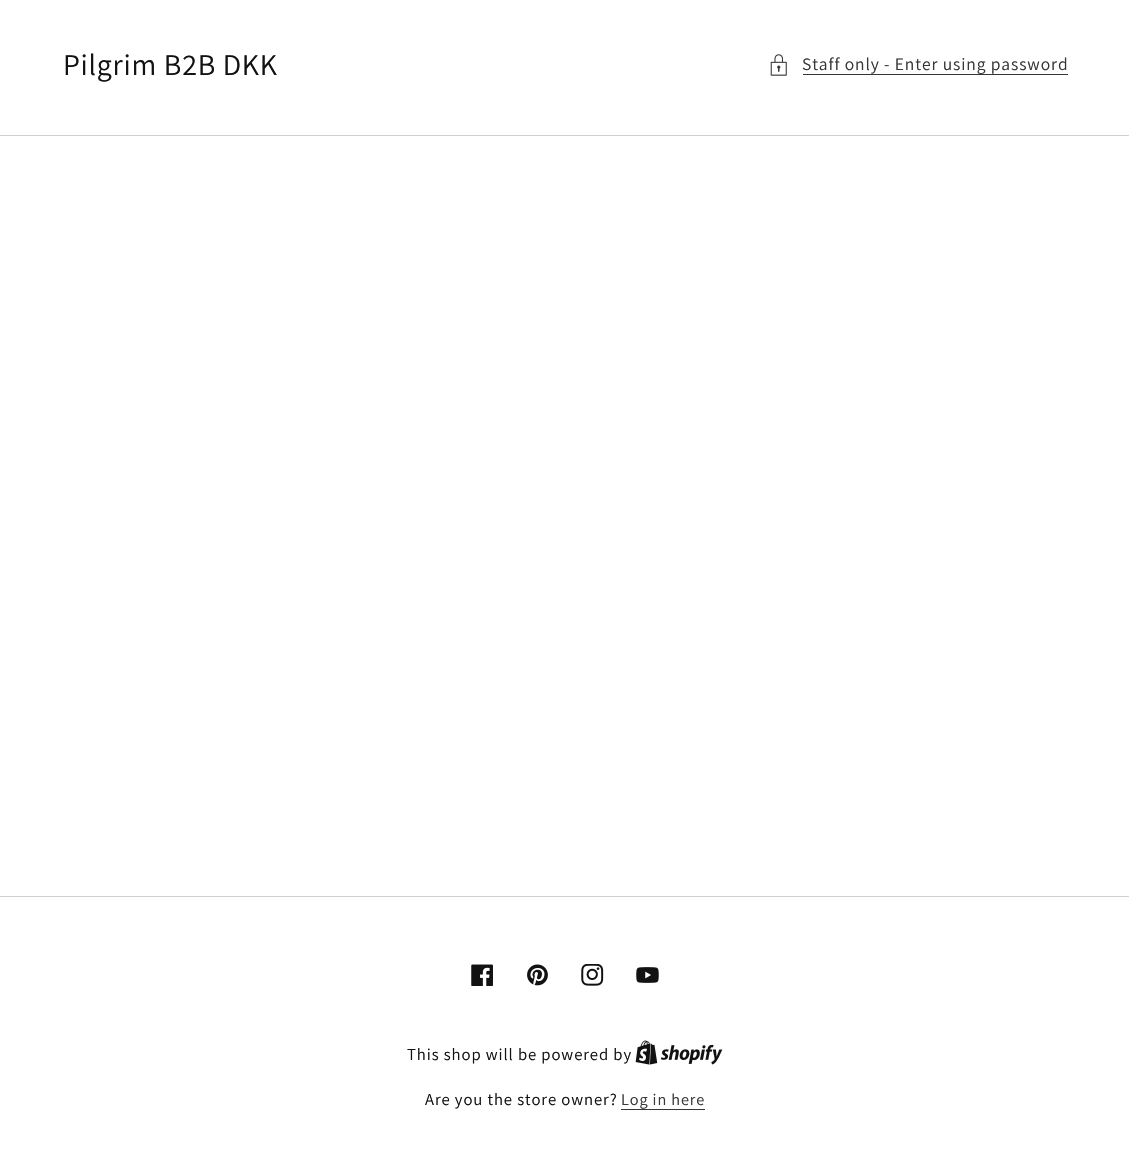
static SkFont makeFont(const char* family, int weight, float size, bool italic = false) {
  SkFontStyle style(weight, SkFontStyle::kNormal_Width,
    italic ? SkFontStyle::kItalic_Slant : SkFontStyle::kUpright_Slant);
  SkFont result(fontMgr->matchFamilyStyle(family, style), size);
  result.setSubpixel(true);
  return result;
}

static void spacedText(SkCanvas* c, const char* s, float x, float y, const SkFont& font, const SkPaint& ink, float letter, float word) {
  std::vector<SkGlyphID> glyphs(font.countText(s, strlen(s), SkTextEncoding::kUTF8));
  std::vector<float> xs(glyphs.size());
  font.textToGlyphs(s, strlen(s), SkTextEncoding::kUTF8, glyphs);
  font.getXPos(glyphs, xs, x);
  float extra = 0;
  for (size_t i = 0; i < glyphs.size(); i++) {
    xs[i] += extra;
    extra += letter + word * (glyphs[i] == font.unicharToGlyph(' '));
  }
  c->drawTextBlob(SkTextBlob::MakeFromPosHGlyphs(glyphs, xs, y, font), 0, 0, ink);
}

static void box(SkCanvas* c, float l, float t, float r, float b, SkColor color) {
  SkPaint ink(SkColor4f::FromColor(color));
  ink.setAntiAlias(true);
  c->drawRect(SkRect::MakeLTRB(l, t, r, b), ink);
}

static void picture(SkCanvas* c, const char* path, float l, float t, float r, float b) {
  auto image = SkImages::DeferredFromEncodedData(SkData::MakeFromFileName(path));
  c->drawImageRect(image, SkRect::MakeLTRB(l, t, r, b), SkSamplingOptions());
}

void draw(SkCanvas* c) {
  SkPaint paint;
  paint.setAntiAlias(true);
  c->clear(0xffffffff);
  SkFont face1 = makeFont("Assistant", 400, 30);
  paint.setColor(0xff121212);
  spacedText(c, "Pilgrim B2B DKK", 63, 75, face1, paint, 0.75f, 0);
  picture(c, "img_01.png", 770, 54, 787, 76);
  SkFont face2 = makeFont("Assistant", 400, 17.5f);
  paint.setColor(0xff363636);
  spacedText(c, "Staff only - Enter using password", 802, 70, face2, paint, 0.9f, 0);
  box(c, 803, 74, 1068, 75, 0xff363636);
  box(c, 0, 135, 1129, 136, 0xffd0d0d0);
  box(c, 0, 896, 1129, 897, 0xffd0d0d0);
  picture(c, "img_02.png", 471, 964, 493, 986);
  picture(c, "img_03.png", 527, 964, 548, 986);
  picture(c, "img_04.png", 581, 964, 604, 986);
  picture(c, "img_05.png", 636, 967, 659, 983);
  SkFont face3 = makeFont("Assistant", 400, 16.7f);
  paint.setColor(0xff121212);
  spacedText(c, "This shop will be powered by", 407, 1060, face3, paint, 0.9f, 0);
  picture(c, "img_06.png", 635, 1040, 723, 1065);
  spacedText(c, "Are you the store owner?", 425, 1105, face3, paint, 0.9f, 0);
  SkFont face4 = makeFont("Assistant", 400, 16.25f);
  paint.setColor(0xff363636);
  spacedText(c, "Log in here", 621, 1105, face4, paint, 0.9f, 0);
  box(c, 621, 1109, 705, 1110, 0xff363636);
}
